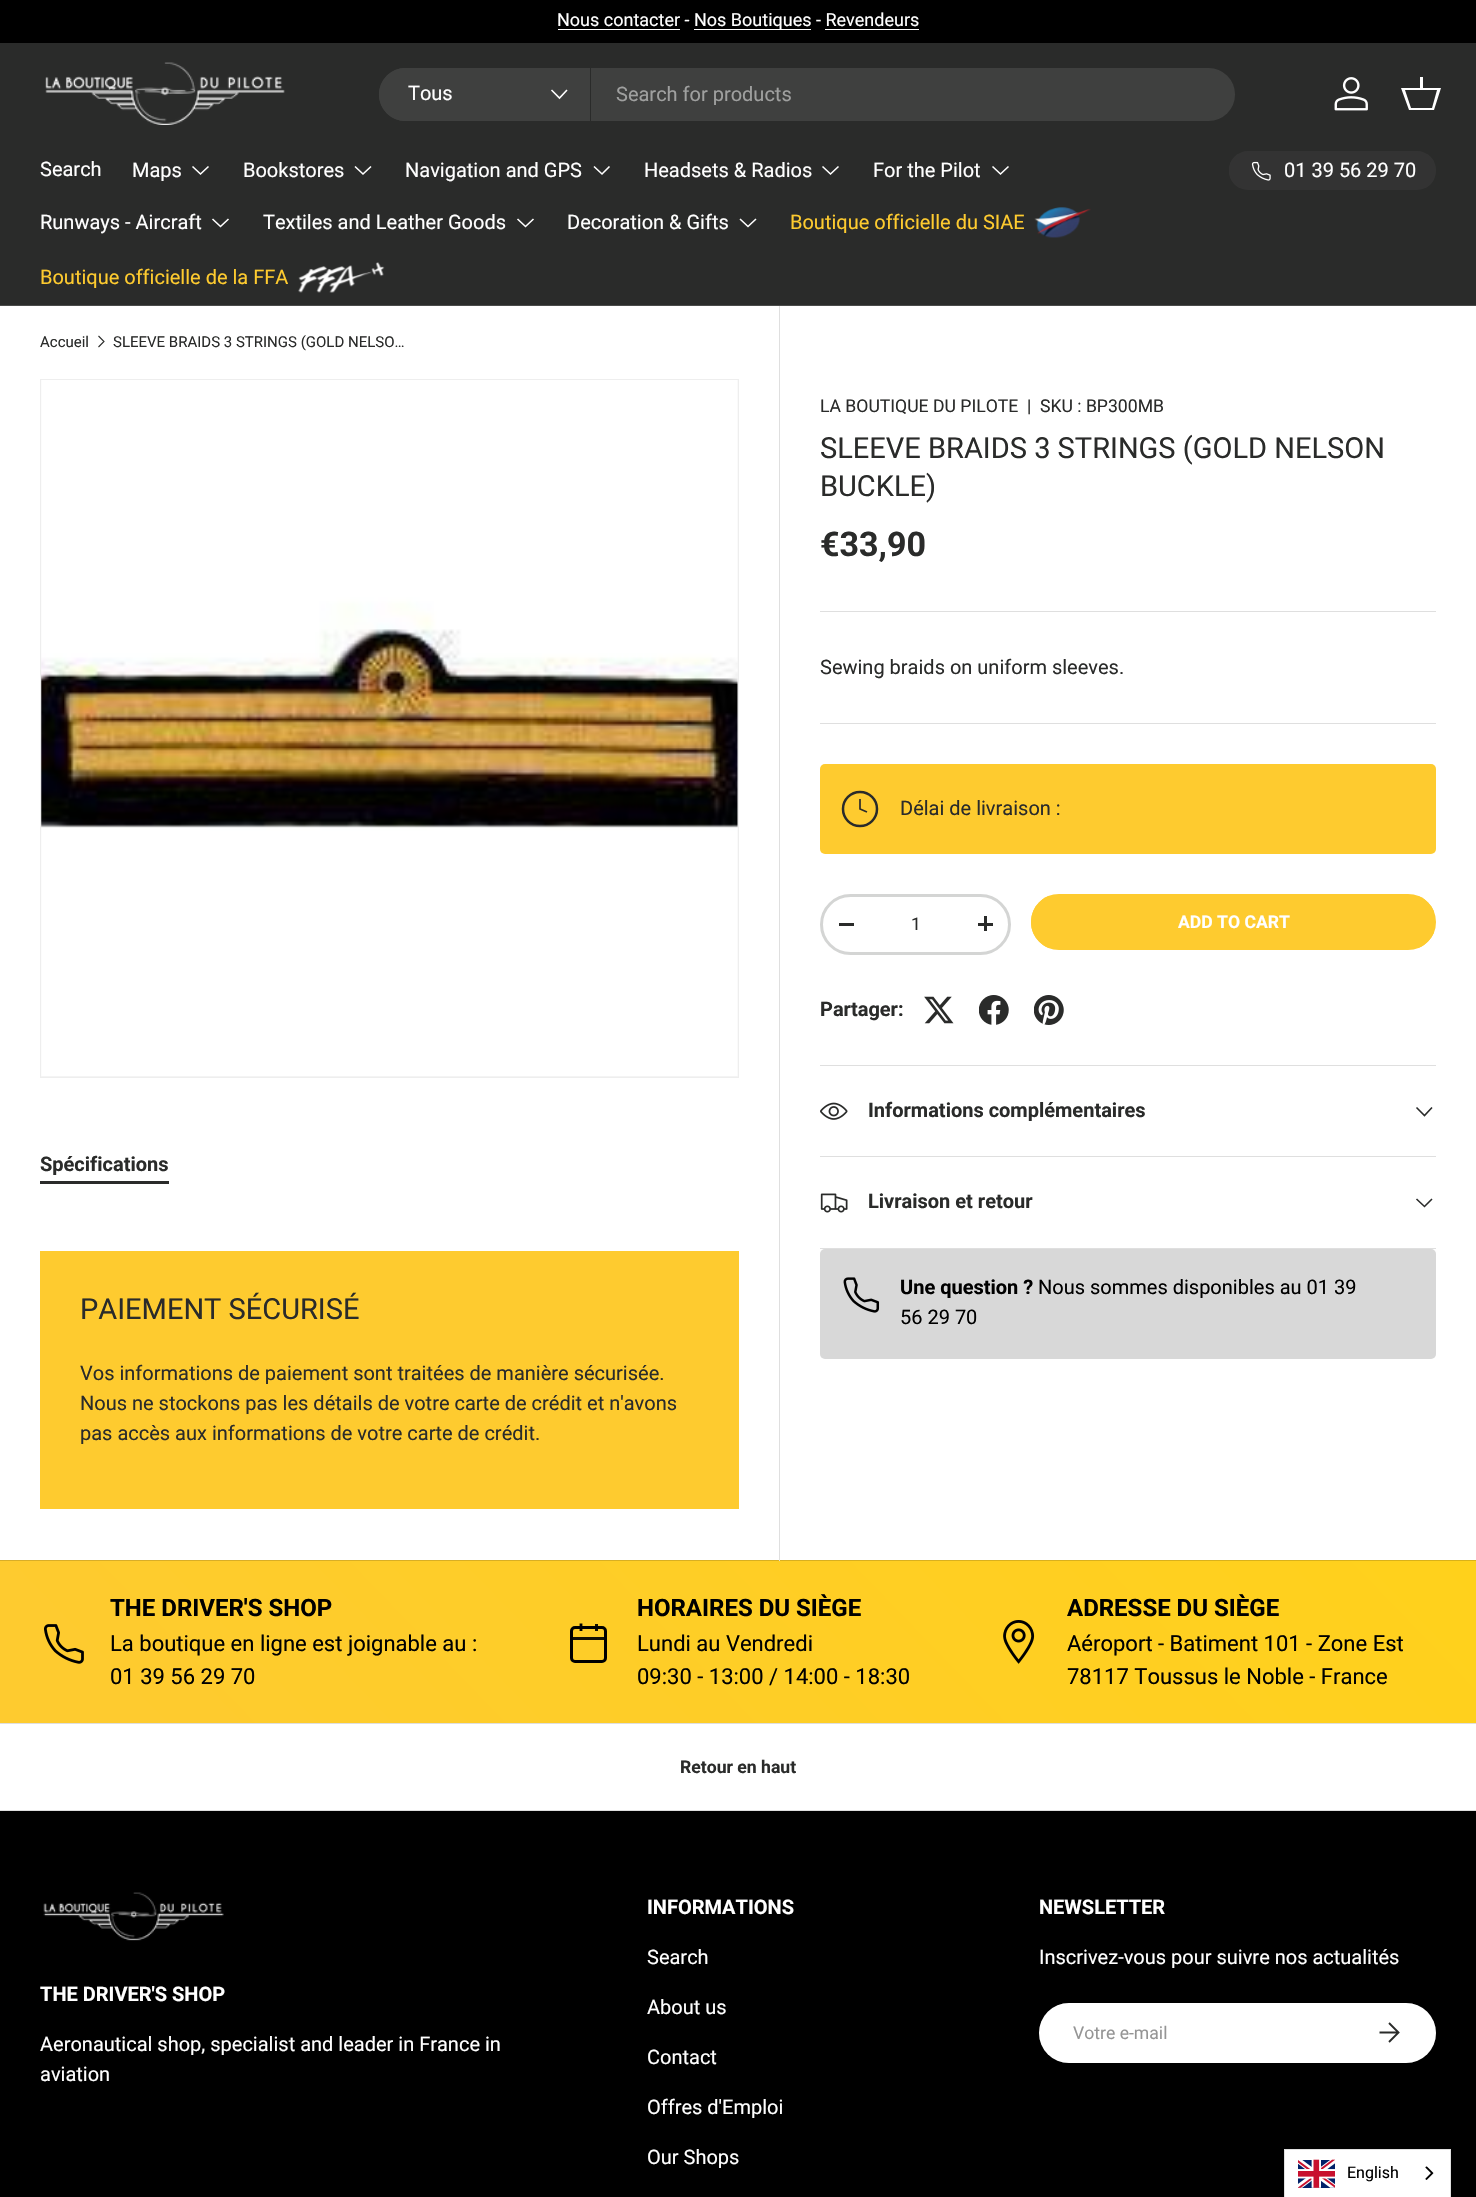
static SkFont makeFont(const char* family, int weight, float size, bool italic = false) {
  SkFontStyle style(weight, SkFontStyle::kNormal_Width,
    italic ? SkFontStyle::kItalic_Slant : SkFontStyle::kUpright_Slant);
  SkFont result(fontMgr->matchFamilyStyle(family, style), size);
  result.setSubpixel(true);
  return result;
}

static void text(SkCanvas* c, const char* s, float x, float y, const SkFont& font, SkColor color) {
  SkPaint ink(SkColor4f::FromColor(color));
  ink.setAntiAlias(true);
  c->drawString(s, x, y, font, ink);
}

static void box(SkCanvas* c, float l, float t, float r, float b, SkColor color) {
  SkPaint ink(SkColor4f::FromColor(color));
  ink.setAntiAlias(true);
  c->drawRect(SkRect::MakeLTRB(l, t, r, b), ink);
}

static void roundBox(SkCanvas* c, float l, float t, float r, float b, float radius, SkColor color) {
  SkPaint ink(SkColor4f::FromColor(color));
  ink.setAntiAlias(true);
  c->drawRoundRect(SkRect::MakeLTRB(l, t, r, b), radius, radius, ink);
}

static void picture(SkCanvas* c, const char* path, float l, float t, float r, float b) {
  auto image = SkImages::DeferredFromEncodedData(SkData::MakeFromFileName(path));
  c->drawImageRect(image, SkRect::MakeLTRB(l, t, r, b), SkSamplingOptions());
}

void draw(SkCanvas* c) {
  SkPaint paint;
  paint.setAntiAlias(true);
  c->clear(0xffffffff);
  box(c, 0, 0, 1476, 43, 0xff000000);
  SkFont face1 = makeFont("Roboto", 400, 18);
  text(c, "Nous contacter -", 557, 26, face1, 0xffffffff);
  box(c, 558, 29, 680, 30, 0xffffffff);
  box(c, 694, 29, 811, 30, 0xffffffff);
  text(c, "Nos Boutiques - Revendeurs", 694, 26, face1, 0xffffffff);
  box(c, 825, 29, 919, 30, 0xffffffff);
  box(c, 0, 43, 1476, 305, 0xff2a2b2a);
  box(c, 0, 305, 1476, 306, 0xff4a4b4a);
  picture(c, "img_01.png", 45, 62, 285, 125);
  roundBox(c, 379, 68, 1235, 121, 26.5f, 0xff3f403f);
  paint.setColor(0xff3f403f);
  c->drawPath(SkPathBuilder().moveTo(405.5f, 68).lineTo(591, 68).lineTo(591, 121).lineTo(405.5f, 121).cubicTo(391, 121, 379, 109, 379, 94.5f).cubicTo(379, 80, 391, 68, 405.5f, 68).close().detach(), paint);
  box(c, 590, 68, 591, 121, 0xff2a2b2a);
  SkFont face2 = makeFont("Roboto", 400, 20);
  text(c, "Tous", 408, 100, face2, 0xffffffff);
  paint.setStyle(SkPaint::kStroke_Style);
  paint.setStrokeWidth(1.6f);
  paint.setColor(0xffffffff);
  c->drawPath(SkPathBuilder().moveTo(567, 90).lineTo(559.5f, 98).lineTo(551.5f, 90).detach(), paint);
  text(c, "Search for products", 616, 101, face2, 0xff9fa09f);
  picture(c, "img_02.png", 1334, 77, 1368, 111);
  paint.setStyle(SkPaint::kFill_Style);
  c->drawPath(SkPathBuilder().moveTo(1420, 88).lineTo(1420, 77).lineTo(1423, 77).lineTo(1423, 88).lineTo(1441, 88).lineTo(1434, 110).lineTo(1409, 110).lineTo(1401, 88).close().moveTo(1405, 90).lineTo(1411, 108).lineTo(1432, 108).lineTo(1437, 90).close().detach(), paint);
  text(c, "Search", 40, 176, face2, 0xffffffff);
  text(c, "Maps", 132, 177, face2, 0xffffffff);
  paint.setStyle(SkPaint::kStroke_Style);
  c->drawPath(SkPathBuilder().moveTo(208.5f, 166.5f).lineTo(200.5f, 174).lineTo(192.5f, 166.5f).detach(), paint);
  text(c, "Bookstores", 243, 177, face2, 0xffffffff);
  c->drawPath(SkPathBuilder().moveTo(371, 166.5f).lineTo(363, 174).lineTo(355, 166.5f).detach(), paint);
  text(c, "Navigation and GPS", 405, 177, face2, 0xffffffff);
  c->drawPath(SkPathBuilder().moveTo(609.5f, 166.5f).lineTo(602, 174).lineTo(594, 166.5f).detach(), paint);
  text(c, "Headsets & Radios", 644, 177, face2, 0xffffffff);
  c->drawPath(SkPathBuilder().moveTo(838.5f, 166.5f).lineTo(830.5f, 174).lineTo(822.5f, 166.5f).detach(), paint);
  text(c, "For the Pilot", 873, 177, face2, 0xffffffff);
  c->drawPath(SkPathBuilder().moveTo(1008.5f, 166.5f).lineTo(1000.5f, 174).lineTo(992.5f, 166.5f).detach(), paint);
  text(c, "Runways - Aircraft", 40, 229, face2, 0xffffffff);
  c->drawPath(SkPathBuilder().moveTo(228.5f, 219).lineTo(220.5f, 226.5f).lineTo(212.5f, 219).detach(), paint);
  text(c, "Textiles and Leather Goods", 263, 229, face2, 0xffffffff);
  c->drawPath(SkPathBuilder().moveTo(533.5f, 219).lineTo(525.5f, 226.5f).lineTo(517.5f, 219).detach(), paint);
  text(c, "Decoration & Gifts", 567, 229, face2, 0xffffffff);
  c->drawPath(SkPathBuilder().moveTo(756, 219).lineTo(748, 226.5f).lineTo(740, 219).detach(), paint);
  text(c, "Boutique officielle du SIAE", 790, 229, face2, 0xfffecb2f);
  picture(c, "img_03.png", 1034, 207, 1091, 238);
  text(c, "Boutique officielle de la FFA", 40, 284, face2, 0xfffecb2f);
  picture(c, "img_04.png", 298, 262, 385, 293);
  c->save();
  c->clipPath(SkPathBuilder().moveTo(1248.5f, 151).lineTo(1416.5f, 151).cubicTo(1427.5f, 151, 1436, 159.5f, 1436, 170.5f).cubicTo(1436, 181.5f, 1427.5f, 190, 1416.5f, 190).lineTo(1248.5f, 190).cubicTo(1237.5f, 190, 1229, 181.5f, 1229, 170.5f).cubicTo(1229, 159.5f, 1237.5f, 151, 1248.5f, 151).close().detach(), true);
  paint.setStyle(SkPaint::kFill_Style);
  {
    const SkColor colors[] = {0xff5a5a5a, 0xff333333, 0xff333333};
    const float stops[] = {0.6f, 0.6f, 1};
    const SkPoint ends[] = {{840, 98}, {1420, 243}};
    paint.setShader(SkGradientShader::MakeLinear(ends, colors, stops, 3, SkTileMode::kClamp));
    paint.setAlpha(255);
  }
  c->drawRect(SkRect::MakeLTRB(1229, 154, 1434, 188), paint);
  c->restore();
  paint.setStyle(SkPaint::kStroke_Style);
  paint.setStrokeWidth(3);
  paint.setShader(nullptr);
  paint.setColor(0xff333333);
  c->drawRoundRect(SkRect::MakeLTRB(1230.5f, 152.5f, 1434.5f, 188.5f), 18, 18, paint);
  picture(c, "img_05.png", 1251, 161, 1271, 181);
  text(c, "01 39 56 29 70", 1284, 177, face2, 0xffffffff);
  SkFont face3 = makeFont("Roboto", 400, 15);
  text(c, "Accueil", 40, 347, face3, 0xff2a2b2a);
  paint.setStrokeWidth(1.1f);
  paint.setColor(0xff2a2b2a);
  c->drawPath(SkPathBuilder().moveTo(98.5f, 336).lineTo(104, 341.5f).lineTo(98.5f, 347).detach(), paint);
  text(c, "SLEEVE BRAIDS 3 STRINGS (GOLD NELSO…", 113, 347, face3, 0xff2a2b2a);
  SkFont face4 = makeFont("Roboto", 700, 20);
  text(c, "Spécifications", 40, 1171, face4, 0xff2a2b2a);
  box(c, 40, 1181, 169, 1184, 0xff2a2b2a);
  box(c, 40, 1251, 739, 1509, 0xfffecb2f);
  SkFont face5 = makeFont("Roboto", 400, 29);
  text(c, "PAIEMENT SÉCURISÉ", 80, 1319, face5, 0xff2a2b2a);
  text(c, "Vos informations de paiement sont traitées de manière sécurisée.", 80, 1380, face2, 0xff2a2b2a);
  text(c, "Nous ne stockons pas les détails de votre carte de crédit et n'avons", 80, 1410, face2, 0xff2a2b2a);
  text(c, "pas accès aux informations de votre carte de crédit.", 80, 1440, face2, 0xff2a2b2a);
  paint.setStyle(SkPaint::kFill_Style);
  paint.setColor(0xfff4f4f4);
  c->drawRect(SkRect::MakeLTRB(40.5f, 379.5f, 738.5f, 1077.5f), paint);
  paint.setStyle(SkPaint::kStroke_Style);
  paint.setStrokeWidth(1);
  paint.setColor(0xffeeeeee);
  c->drawRect(SkRect::MakeLTRB(40.5f, 379.5f, 738.5f, 1077.5f), paint);
  picture(c, "img_06.png", 41, 380, 738, 1076);
  paint.setStyle(SkPaint::kFill_Style);
  {
    const SkColor colors[] = {0xffd8ad28, 0xffd9b217};
    const float stops[] = {0.08f, 1};
    const SkPoint ends[] = {{316, 1888}, {1160, 1073}};
    paint.setShader(SkGradientShader::MakeLinear(ends, colors, stops, 2, SkTileMode::kClamp));
    paint.setAlpha(255);
  }
  c->drawRect(SkRect::MakeLTRB(0, 1560, 1476, 1561), paint);
  box(c, 779, 306, 780, 1561, 0xffdfdfdf);
  SkFont face6 = makeFont("Roboto", 400, 17.6f);
  text(c, "LA BOUTIQUE DU PILOTE", 820, 412, face6, 0xff2a2b2a);
  text(c, "|", 1027, 412, face6, 0xff2a2b2a);
  text(c, "SKU : BP300MB", 1040, 412, face6, 0xff2a2b2a);
  text(c, "SLEEVE BRAIDS 3 STRINGS (GOLD NELSON", 820, 458, face5, 0xff2a2b2a);
  text(c, "BUCKLE)", 820, 496, face5, 0xff2a2b2a);
  SkFont face7 = makeFont("Roboto", 700, 34);
  text(c, "€33,90", 820, 556, face7, 0xff2a2b2a);
  box(c, 820, 611, 1436, 612, 0xffdfdfdf);
  text(c, "Sewing braids on uniform sleeves.", 820, 674, face2, 0xff2a2b2a);
  box(c, 820, 723, 1436, 724, 0xffdfdfdf);
  roundBox(c, 820, 764, 1436, 854, 5, 0xfffecb2f);
  paint.setStyle(SkPaint::kStroke_Style);
  paint.setStrokeWidth(2.5f);
  paint.setShader(nullptr);
  paint.setColor(0xff2a2b2a);
  c->drawCircle(860, 809, 17, paint);
  paint.setStrokeWidth(1.7f);
  c->drawPath(SkPathBuilder().moveTo(860, 799).lineTo(860, 809).lineTo(867, 812).detach(), paint);
  text(c, "Délai de livraison :", 900, 815, face2, 0xff2a2b2a);
  paint.setStrokeWidth(3);
  paint.setColor(0xffd4d5d4);
  c->drawRoundRect(SkRect::MakeLTRB(821.5f, 895.5f, 1009.5f, 953.5f), 29, 29, paint);
  box(c, 839, 923, 854, 926, 0xff2a2b2a);
  text(c, "1", 911, 930, face6, 0xff2a2b2a);
  box(c, 978, 923, 993, 926, 0xff2a2b2a);
  box(c, 984, 916, 987, 931, 0xff2a2b2a);
  c->save();
  c->clipPath(SkPathBuilder().moveTo(1059, 894).lineTo(1408, 894).cubicTo(1423.5f, 894, 1436, 906.5f, 1436, 922).cubicTo(1436, 937.5f, 1423.5f, 950, 1408, 950).lineTo(1059, 950).cubicTo(1043.5f, 950, 1031, 937.5f, 1031, 922).cubicTo(1031, 906.5f, 1043.5f, 894, 1059, 894).close().detach(), true);
  paint.setStyle(SkPaint::kFill_Style);
  {
    const SkColor colors[] = {0xfffed75d, 0xfffecb2f, 0xfffecb2f};
    const float stops[] = {0.6f, 0.6f, 1};
    const SkPoint ends[] = {{263, 780}, {1405, 1064}};
    paint.setShader(SkGradientShader::MakeLinear(ends, colors, stops, 3, SkTileMode::kClamp));
    paint.setAlpha(255);
  }
  c->drawRect(SkRect::MakeLTRB(1031, 896, 1434, 948), paint);
  c->restore();
  paint.setStyle(SkPaint::kStroke_Style);
  paint.setShader(nullptr);
  paint.setColor(0xfffecb2f);
  c->drawRoundRect(SkRect::MakeLTRB(1032.5f, 895.5f, 1434.5f, 948.5f), 26.5f, 26.5f, paint);
  SkFont face8 = makeFont("Roboto", 700, 17.6f);
  text(c, "ADD TO CART", 1178, 928, face8, 0xffffffff);
  text(c, "Partager:", 820, 1016, face4, 0xff2a2b2a);
  picture(c, "img_07.png", 924, 996, 954, 1024);
  picture(c, "img_08.png", 979, 995, 1009, 1025);
  picture(c, "img_09.png", 1034, 995, 1064, 1025);
  box(c, 820, 1065, 1436, 1066, 0xffdfdfdf);
  box(c, 820, 1156, 1436, 1157, 0xffdfdfdf);
  picture(c, "img_10.png", 820, 1102, 848, 1120);
  text(c, "Informations complémentaires", 868, 1117, face4, 0xff2a2b2a);
  paint.setStrokeWidth(1.6f);
  paint.setColor(0xff2a2b2a);
  c->drawPath(SkPathBuilder().moveTo(1432, 1107.5f).lineTo(1424.5f, 1115.5f).lineTo(1416.5f, 1107.5f).detach(), paint);
  box(c, 820, 1248, 1436, 1249, 0xffdfdfdf);
  picture(c, "img_11.png", 820, 1193, 848, 1213);
  text(c, "Livraison et retour", 868, 1208, face4, 0xff2a2b2a);
  c->drawPath(SkPathBuilder().moveTo(1432, 1199).lineTo(1424.5f, 1206.5f).lineTo(1416.5f, 1199).detach(), paint);
  roundBox(c, 820, 1249, 1436, 1359, 5, 0xffd8d8d8);
  picture(c, "img_12.png", 843, 1277, 880, 1313);
  text(c, "Une question ?", 900, 1294, face4, 0xff000000);
  text(c, "Nous sommes disponibles au 01 39", 1038, 1294, face2, 0xff000000);
  text(c, "56 29 70", 900, 1324, face2, 0xff000000);
  paint.setStyle(SkPaint::kFill_Style);
  {
    const SkColor colors[] = {0xfffecb2f, 0xffffd11b};
    const float stops[] = {0.08f, 1};
    const SkPoint ends[] = {{316, 2050}, {1160, 1234}};
    paint.setShader(SkGradientShader::MakeLinear(ends, colors, stops, 2, SkTileMode::kClamp));
    paint.setAlpha(255);
  }
  c->drawRect(SkRect::MakeLTRB(0, 1561, 1476, 1723), paint);
  picture(c, "img_13.png", 44, 1624, 84, 1664);
  SkFont face9 = makeFont("Roboto", 700, 24);
  text(c, "THE DRIVER'S SHOP", 110, 1616, face9, 0xff000000);
  SkFont face10 = makeFont("Roboto", 400, 22);
  text(c, "La boutique en ligne est joignable au :", 110, 1651, face10, 0xff000000);
  text(c, "01 39 56 29 70", 110, 1684, face10, 0xff000000);
  paint.setStyle(SkPaint::kStroke_Style);
  paint.setStrokeWidth(3);
  paint.setShader(nullptr);
  paint.setColor(0xff000000);
  c->drawRoundRect(SkRect::MakeLTRB(571.5f, 1627.5f, 605.5f, 1661.5f), 3.5f, 3.5f, paint);
  box(c, 595, 1624, 598, 1631, 0xed000000);
  paint.setStrokeWidth(2.8f);
  c->drawPath(SkPathBuilder().moveTo(581, 1623.5f).lineTo(581, 1631).detach(), paint);
  box(c, 572, 1637, 606, 1640, 0xed000000);
  text(c, "HORAIRES DU SIÈGE", 637, 1616, face9, 0xff000000);
  text(c, "Lundi au Vendredi", 637, 1651, face10, 0xff000000);
  text(c, "09:30 - 13:00 / 14:00 - 18:30", 637, 1684, face10, 0xff000000);
  picture(c, "img_14.png", 1003, 1620, 1035, 1664);
  text(c, "ADRESSE DU SIÈGE", 1067, 1616, face9, 0xff000000);
  text(c, "Aéroport - Batiment 101 - Zone Est", 1067, 1651, face10, 0xff000000);
  text(c, "78117 Toussus le Noble - France", 1067, 1684, face10, 0xff000000);
  box(c, 0, 1723, 1476, 1724, 0xffdfdfdf);
  box(c, 0, 1810, 1476, 1811, 0xffdfdfdf);
  text(c, "Retour en haut", 680, 1773, face8, 0xff2a2b2a);
  box(c, 0, 1811, 1476, 2197, 0xff000000);
  picture(c, "img_15.png", 43, 1892, 224, 1941);
  text(c, "THE DRIVER'S SHOP", 40, 2001, face4, 0xffffffff);
  text(c, "Aeronautical shop, specialist and leader in France in", 40, 2051, face2, 0xffffffff);
  text(c, "aviation", 40, 2081, face2, 0xffffffff);
  text(c, "INFORMATIONS", 647, 1914, face4, 0xffffffff);
  text(c, "Search", 647, 1964, face2, 0xffffffff);
  text(c, "About us", 647, 2014, face2, 0xffffffff);
  text(c, "Contact", 647, 2064, face2, 0xffffffff);
  text(c, "Offres d'Emploi", 647, 2114, face2, 0xffffffff);
  text(c, "Our Shops", 647, 2164, face2, 0xffffffff);
  text(c, "NEWSLETTER", 1039, 1914, face4, 0xffffffff);
  text(c, "Inscrivez-vous pour suivre nos actualités", 1039, 1964, face2, 0xffffffff);
  roundBox(c, 1039, 2003, 1436, 2063, 30, 0xffffffff);
  paint.setStrokeWidth(3);
  paint.setColor(0x33ffffff);
  c->drawRoundRect(SkRect::MakeLTRB(1040.5f, 2004.5f, 1434.5f, 2061.5f), 28.5f, 28.5f, paint);
  text(c, "Votre e-mail", 1073, 2039, face6, 0xff959595);
  paint.setStrokeWidth(1.9f);
  paint.setColor(0xff2a2b2a);
  c->drawPath(SkPathBuilder().moveTo(1379.5f, 2032.5f).lineTo(1398, 2032.5f).moveTo(1389, 2023).lineTo(1398.5f, 2032.5f).lineTo(1389, 2042).detach(), paint);
  paint.setStyle(SkPaint::kFill_Style);
  paint.setColor(0xffffffff);
  c->drawRect(SkRect::MakeLTRB(1284.5f, 2149.5f, 1450.5f, 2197.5f), paint);
  paint.setStyle(SkPaint::kStroke_Style);
  paint.setStrokeWidth(1);
  paint.setColor(0xffe0e0e0);
  c->drawRect(SkRect::MakeLTRB(1284.5f, 2149.5f, 1450.5f, 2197.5f), paint);
  picture(c, "img_16.png", 1298, 2159, 1335, 2188);
  SkFont face11 = makeFont("Roboto", 400, 16);
  text(c, "English", 1347, 2178, face11, 0xff000000);
  picture(c, "img_17.png", 1425, 2166, 1434, 2180);
}
